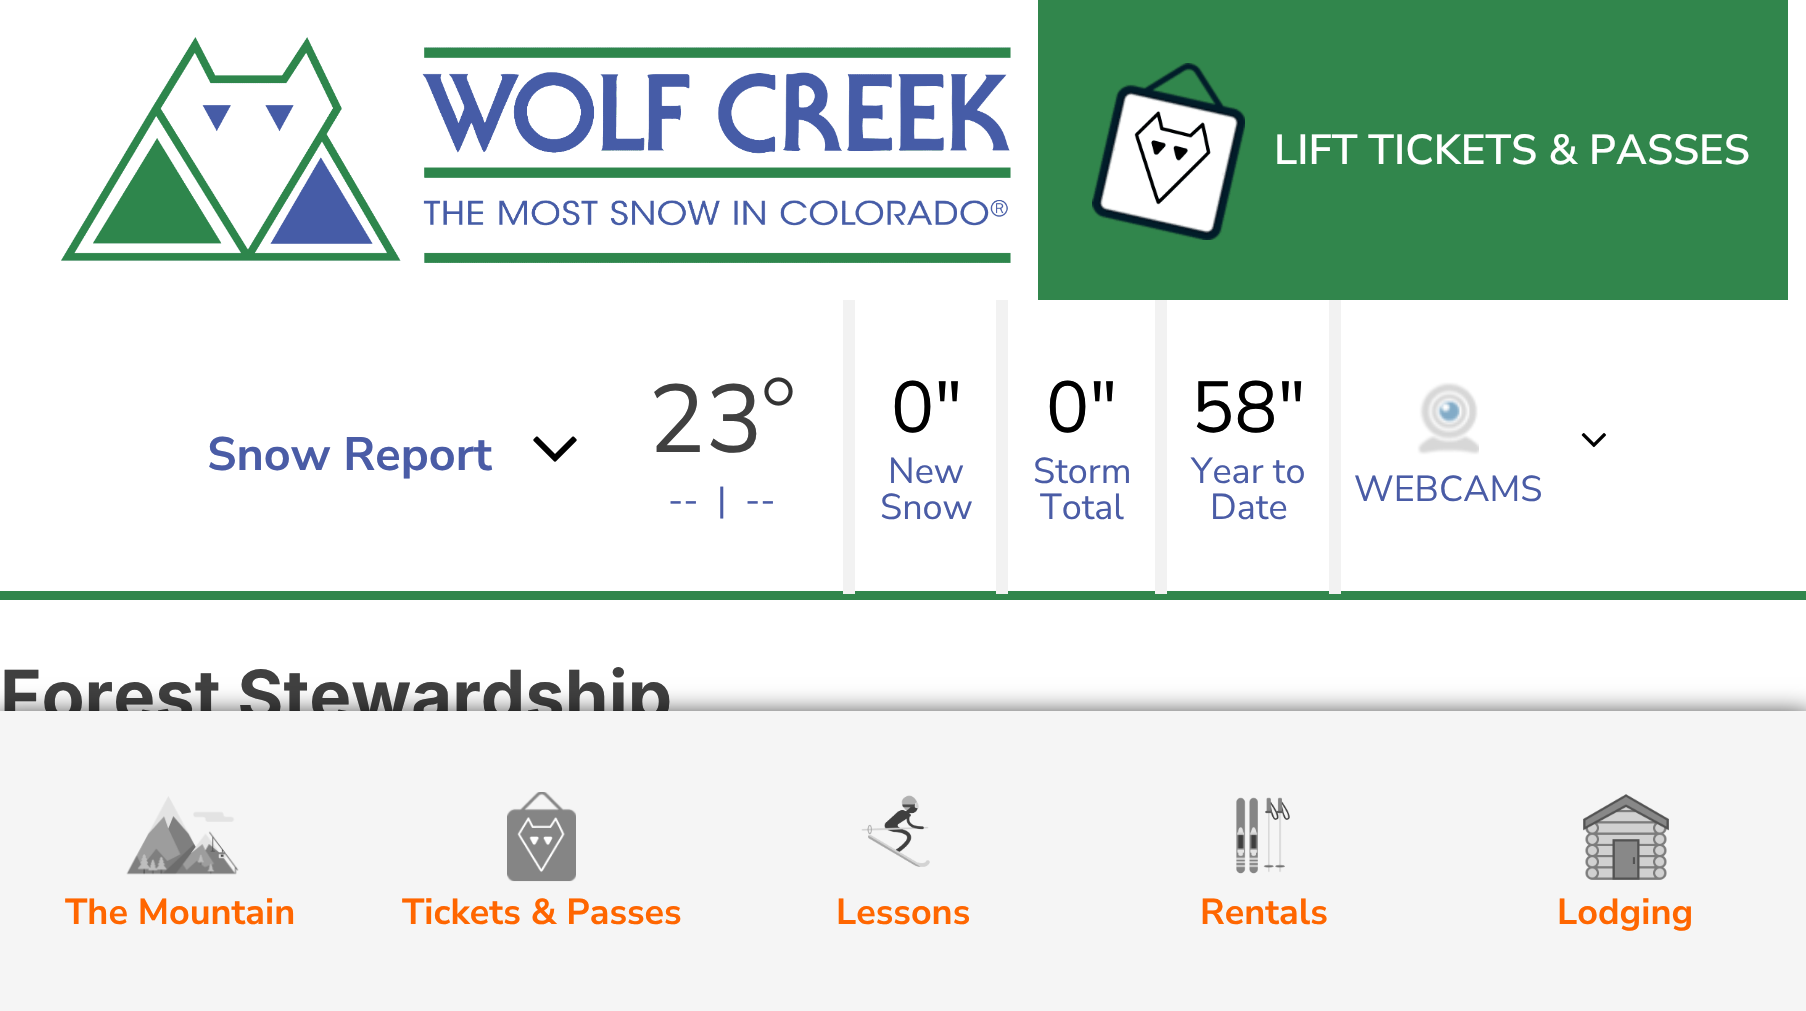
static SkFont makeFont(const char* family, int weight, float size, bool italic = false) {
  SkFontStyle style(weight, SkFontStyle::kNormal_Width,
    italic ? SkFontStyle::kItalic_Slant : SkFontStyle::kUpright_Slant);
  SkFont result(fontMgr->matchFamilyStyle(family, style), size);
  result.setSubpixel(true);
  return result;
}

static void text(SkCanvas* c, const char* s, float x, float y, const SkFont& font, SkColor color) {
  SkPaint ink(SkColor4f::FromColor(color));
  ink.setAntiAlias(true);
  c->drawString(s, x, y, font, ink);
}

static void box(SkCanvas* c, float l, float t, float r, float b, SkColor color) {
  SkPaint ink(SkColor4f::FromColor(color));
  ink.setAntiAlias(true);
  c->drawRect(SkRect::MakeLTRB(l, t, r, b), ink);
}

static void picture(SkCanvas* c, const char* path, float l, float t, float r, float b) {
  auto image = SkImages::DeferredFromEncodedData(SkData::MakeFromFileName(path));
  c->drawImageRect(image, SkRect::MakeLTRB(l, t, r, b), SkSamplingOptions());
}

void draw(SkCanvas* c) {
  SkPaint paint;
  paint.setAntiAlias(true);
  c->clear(0xffffffff);
  picture(c, "img_01.png", 61, 37, 1011, 263);
  box(c, 1038, 0, 1788, 300, 0xff31864c);
  picture(c, "img_02.png", 1092, 63, 1245, 240);
  SkFont face1 = makeFont("Nunito Sans", 600, 42);
  text(c, "LIFT TICKETS & PASSES", 1274, 164, face1, 0xffffffff);
  box(c, 0, 591, 1806, 600, 0xff31864c);
  SkFont face2 = makeFont("Nunito Sans", 700, 46.75f);
  text(c, "Snow Report", 207, 470, face2, 0xff4a5ca6);
  picture(c, "img_03.png", 533, 436, 577, 462);
  box(c, 843, 300, 855, 594, 0xfff2f2f2);
  SkFont face3 = makeFont("Nunito Sans", 400, 96);
  text(c, "23", 648, 452, face3, 0xff404040);
  picture(c, "img_04.png", 764, 377, 793, 406);
  SkFont face4 = makeFont("Nunito Sans", 400, 36);
  text(c, "--  |  --", 668, 512, face4, 0xff4a5ca6);
  box(c, 996, 300, 1008, 594, 0xfff2f2f2);
  SkFont face5 = makeFont("Nunito Sans", 400, 72);
  text(c, "0\"", 891, 432, face5, 0xff000000);
  text(c, "New", 888, 483, face4, 0xff4a5ca6);
  text(c, "Snow", 880, 519, face4, 0xff4a5ca6);
  box(c, 1155, 300, 1167, 594, 0xfff2f2f2);
  text(c, "0\"", 1046, 432, face5, 0xff000000);
  text(c, "Storm", 1033, 483, face4, 0xff4a5ca6);
  text(c, "Total", 1040, 519, face4, 0xff4a5ca6);
  box(c, 1329, 300, 1341, 594, 0xfff2f2f2);
  text(c, "58\"", 1191, 432, face5, 0xff000000);
  text(c, "Year to", 1191, 483, face4, 0xff4a5ca6);
  text(c, "Date", 1210, 519, face4, 0xff4a5ca6);
  picture(c, "img_05.png", 1581, 433, 1606, 448);
  picture(c, "img_06.png", 1417, 382, 1479, 455);
  text(c, "WEBCAMS", 1354, 501, face4, 0xff4a5ca6);
  SkFont face6 = makeFont("Inter", 700, 70.5f);
  text(c, "Forest Stewardship", 0, 721, face6, 0xff404040);
  paint.setColor(0xff000000);
  paint.setMaskFilter(SkMaskFilter::MakeBlur(kNormal_SkBlurStyle, 13.5f));
  c->drawRect(SkRect::MakeLTRB(-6, 717, 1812, 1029), paint);
  paint.setMaskFilter(nullptr);
  box(c, 0, 711, 1806, 1011, 0xfff5f5f5);
  picture(c, "img_07.png", 126, 796, 239, 875);
  SkFont face7 = makeFont("Nunito Sans", 700, 36);
  text(c, "The Mountain", 65, 924, face7, 0xffff6600);
  picture(c, "img_08.png", 507, 792, 576, 882);
  text(c, "Tickets & Passes", 402, 924, face7, 0xffff6600);
  picture(c, "img_09.png", 861, 795, 930, 867);
  text(c, "Lessons", 836, 924, face7, 0xffff6600);
  picture(c, "img_10.png", 1236, 797, 1290, 874);
  text(c, "Rentals", 1200, 924, face7, 0xffff6600);
  picture(c, "img_11.png", 1583, 794, 1669, 880);
  text(c, "Lodging", 1557, 924, face7, 0xffff6600);
}
